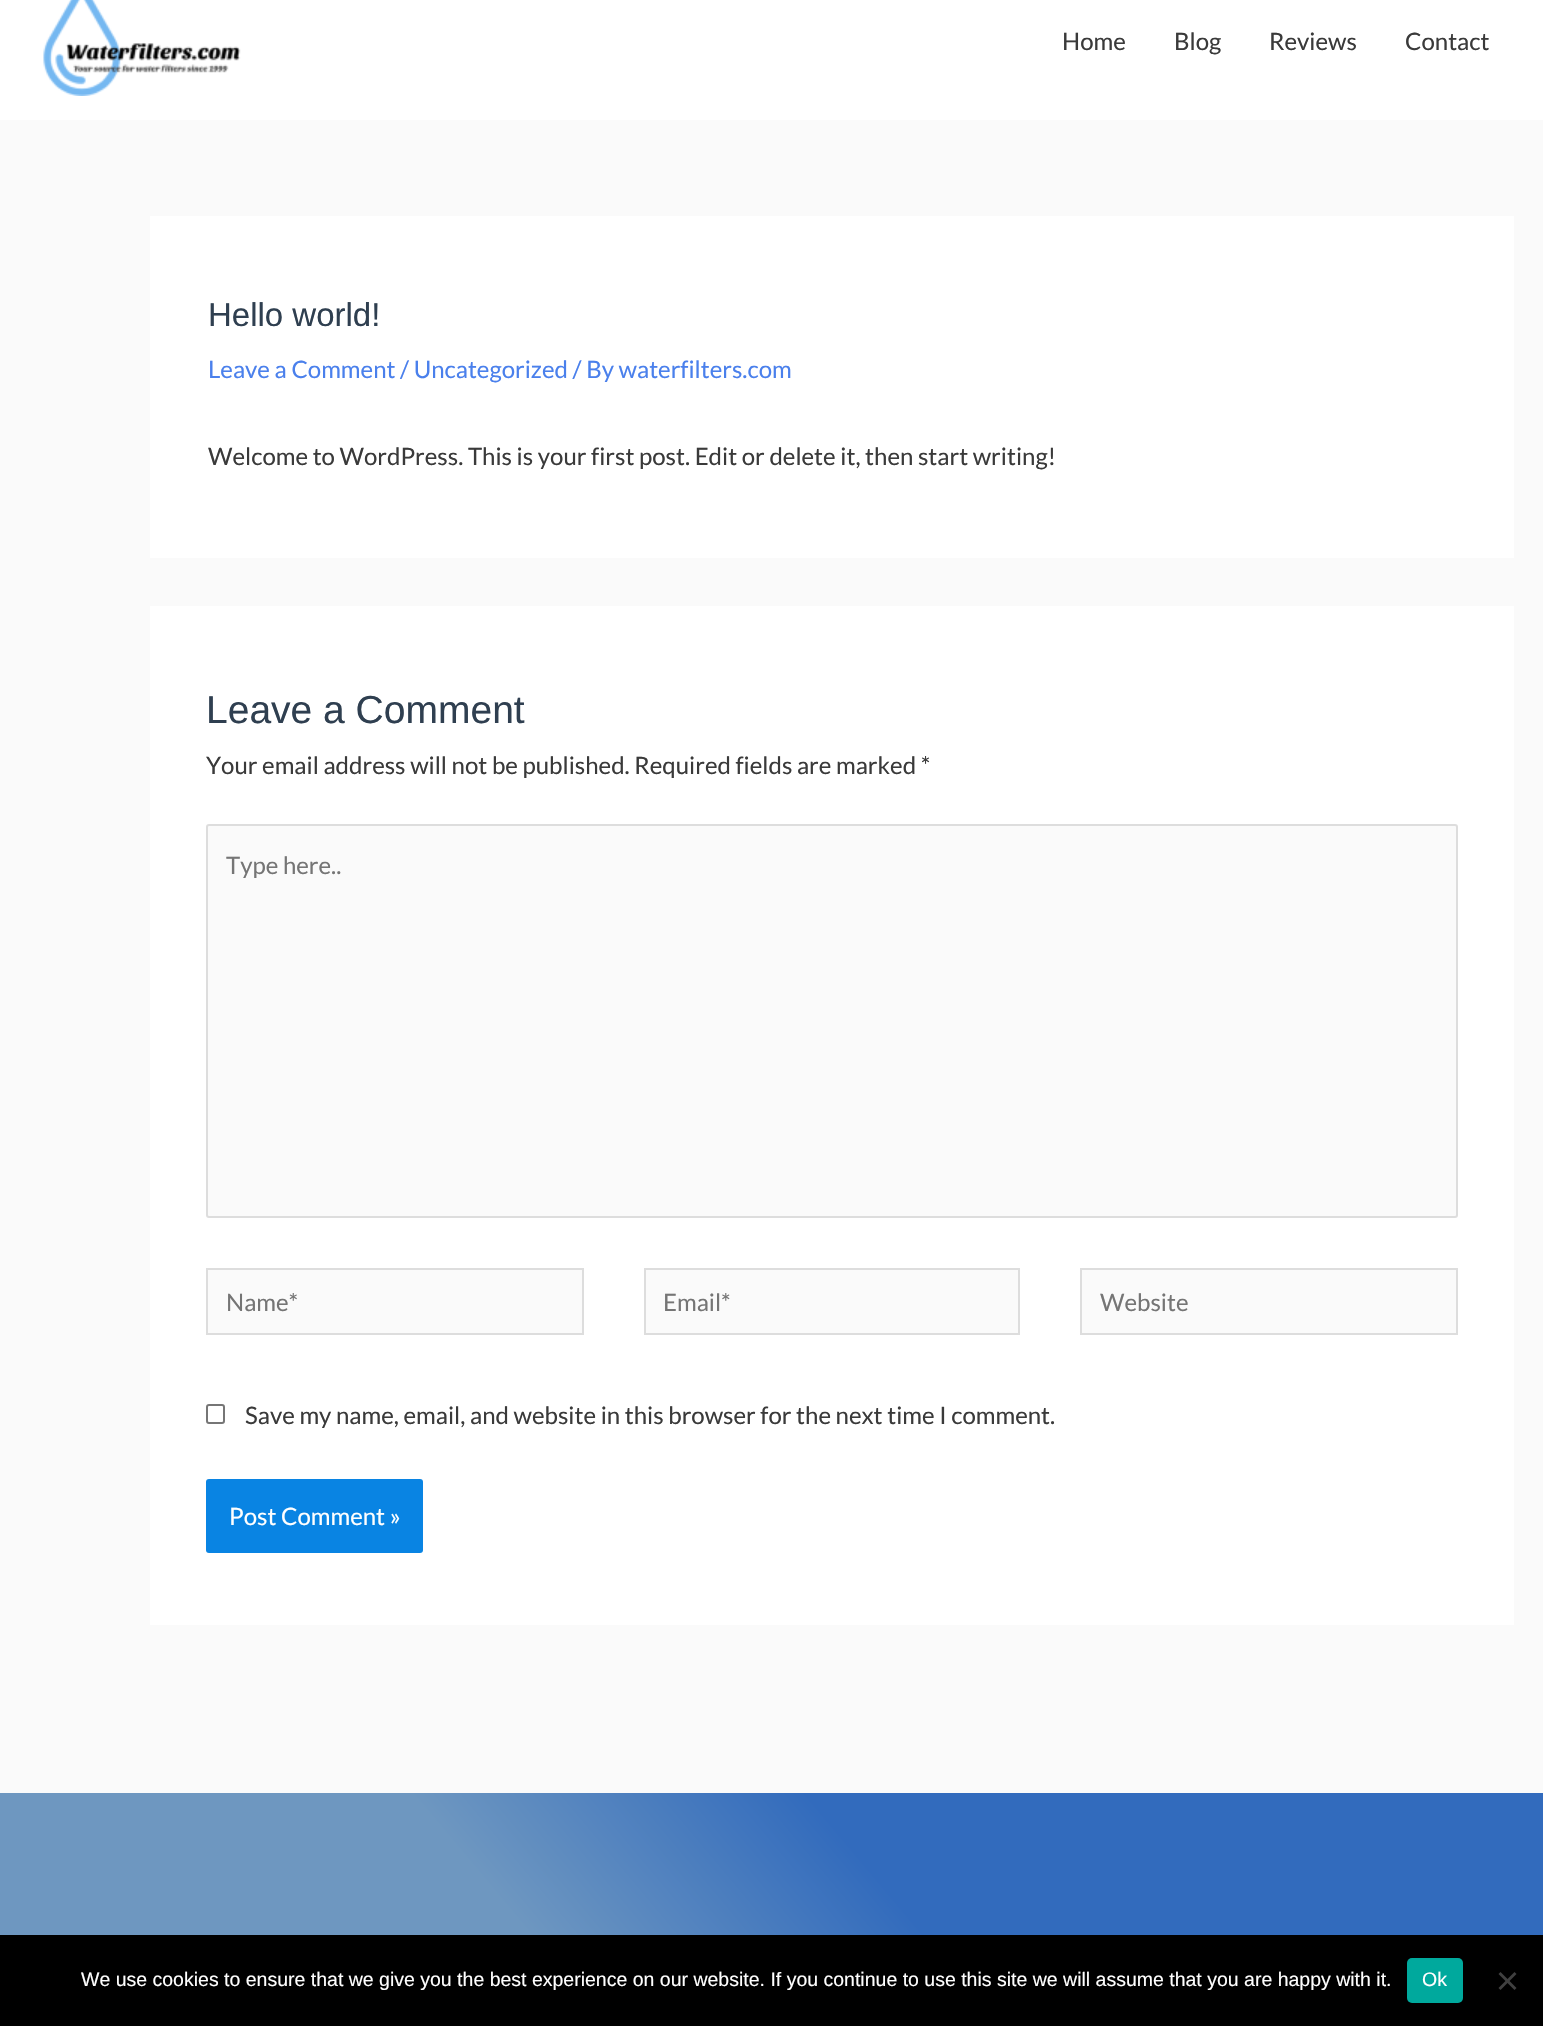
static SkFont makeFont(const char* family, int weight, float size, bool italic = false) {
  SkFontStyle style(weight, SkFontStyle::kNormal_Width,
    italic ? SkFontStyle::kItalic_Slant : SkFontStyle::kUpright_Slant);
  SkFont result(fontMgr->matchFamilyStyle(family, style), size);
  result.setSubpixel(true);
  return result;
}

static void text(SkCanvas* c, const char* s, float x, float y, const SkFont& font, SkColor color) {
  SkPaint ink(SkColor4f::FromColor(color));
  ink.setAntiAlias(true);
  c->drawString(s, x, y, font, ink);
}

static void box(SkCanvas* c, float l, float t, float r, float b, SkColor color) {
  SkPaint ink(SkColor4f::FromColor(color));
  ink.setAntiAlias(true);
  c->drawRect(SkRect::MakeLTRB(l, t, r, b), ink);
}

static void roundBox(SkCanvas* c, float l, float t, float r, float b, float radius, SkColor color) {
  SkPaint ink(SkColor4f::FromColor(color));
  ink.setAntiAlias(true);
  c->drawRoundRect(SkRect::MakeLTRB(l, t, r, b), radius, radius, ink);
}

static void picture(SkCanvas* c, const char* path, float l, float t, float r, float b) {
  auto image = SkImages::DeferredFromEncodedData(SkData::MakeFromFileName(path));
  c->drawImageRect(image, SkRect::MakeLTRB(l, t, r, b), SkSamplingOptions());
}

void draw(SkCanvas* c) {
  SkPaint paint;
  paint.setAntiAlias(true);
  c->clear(0xfffafafa);
  box(c, 0, 0, 1543, 120, 0xffffffff);
  picture(c, "img_01.png", 43, 0, 241, 96);
  SkFont face1 = makeFont("Lato", 400, 24);
  text(c, "Home", 1062, 50, face1, 0xff3a3a3a);
  text(c, "Blog", 1174, 50, face1, 0xff3a3a3a);
  text(c, "Reviews", 1269, 50, face1, 0xff3a3a3a);
  text(c, "Contact", 1405, 50, face1, 0xff3a3a3a);
  box(c, 150, 216, 1514, 558, 0xffffffff);
  SkFont face2 = makeFont("Liberation Sans", 400, 33);
  text(c, "Hello world!", 208, 326, face2, 0xff2f3f50);
  text(c, "Leave a Comment / Uncategorized / By waterfilters.com", 208, 378, face1, 0xff4a80ec);
  text(c, "Welcome to WordPress. This is your first post. Edit or delete it, then start writing!", 208, 465, face1, 0xff3a3a3a);
  box(c, 150, 606, 1514, 1625, 0xffffffff);
  SkFont face3 = makeFont("Liberation Sans", 400, 39);
  text(c, "Leave a Comment", 206, 723, face3, 0xff2f3f50);
  text(c, "Your email address will not be published. Required fields are marked *", 206, 774, face1, 0xff3a3a3a);
  paint.setColor(0xfffafafa);
  c->drawRoundRect(SkRect::MakeLTRB(207, 825, 1457, 1217), 2, 2, paint);
  paint.setStyle(SkPaint::kStroke_Style);
  paint.setStrokeWidth(2);
  paint.setColor(0xffdddddd);
  c->drawRoundRect(SkRect::MakeLTRB(207, 825, 1457, 1217), 2, 2, paint);
  text(c, "Type here..", 226, 874, face1, 0xff757575);
  paint.setStyle(SkPaint::kFill_Style);
  paint.setColor(0xfffafafa);
  c->drawRect(SkRect::MakeLTRB(207, 1269, 583, 1334), paint);
  paint.setStyle(SkPaint::kStroke_Style);
  paint.setColor(0xffdddddd);
  c->drawRect(SkRect::MakeLTRB(207, 1269, 583, 1334), paint);
  text(c, "Name*", 226, 1311, face1, 0xff757575);
  paint.setStyle(SkPaint::kFill_Style);
  paint.setColor(0xfffafafa);
  c->drawRect(SkRect::MakeLTRB(645, 1269, 1019, 1334), paint);
  paint.setStyle(SkPaint::kStroke_Style);
  paint.setColor(0xffdddddd);
  c->drawRect(SkRect::MakeLTRB(645, 1269, 1019, 1334), paint);
  text(c, "Email*", 663, 1311, face1, 0xff757575);
  paint.setStyle(SkPaint::kFill_Style);
  paint.setColor(0xfffafafa);
  c->drawRect(SkRect::MakeLTRB(1081, 1269, 1457, 1334), paint);
  paint.setStyle(SkPaint::kStroke_Style);
  paint.setColor(0xffdddddd);
  c->drawRect(SkRect::MakeLTRB(1081, 1269, 1457, 1334), paint);
  text(c, "Website", 1100, 1311, face1, 0xff757575);
  paint.setColor(0xff767676);
  c->drawRoundRect(SkRect::MakeLTRB(207, 1405, 224, 1423), 2, 2, paint);
  text(c, "Save my name, email, and website in this browser for the next time I comment.", 245, 1424, face1, 0xff3a3a3a);
  roundBox(c, 206, 1479, 423, 1553, 3, 0xff0984e3);
  text(c, "Post Comment »", 229, 1525, face1, 0xffffffff);
  paint.setStyle(SkPaint::kFill_Style);
  {
    const SkColor colors[] = {0xff6e97c0, 0xff326bbd};
    const float stops[] = {0.4f, 0.61f};
    const SkPoint ends[] = {{217, 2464}, {1326, 1534}};
    paint.setShader(SkGradientShader::MakeLinear(ends, colors, stops, 2, SkTileMode::kClamp));
    paint.setAlpha(255);
  }
  c->drawRect(SkRect::MakeLTRB(0, 1793, 1543, 1935), paint);
  box(c, 0, 1935, 1543, 2026, 0xff000000);
  SkFont face4 = makeFont("Liberation Sans", 400, 19.5f);
  text(c, "We use cookies to ensure that we give you the best experience on our website. If you continue to use this site we will assume that you are happy with it.", 81, 1986, face4, 0xffffffff);
  roundBox(c, 1407, 1958, 1463, 2003, 5, 0xff00a99d);
  text(c, "Ok", 1422, 1986, face4, 0xffffffff);
  paint.setShader(nullptr);
  paint.setColor(0xff404040);
  c->drawPath(SkPathBuilder().moveTo(1514.5f, 1972).lineTo(1516.5f, 1974).lineTo(1500.5f, 1990).lineTo(1498.5f, 1988).close().detach(), paint);
  c->drawPath(SkPathBuilder().moveTo(1498.5f, 1974).lineTo(1500.5f, 1972).lineTo(1516.5f, 1988).lineTo(1514.5f, 1990).close().detach(), paint);
}
